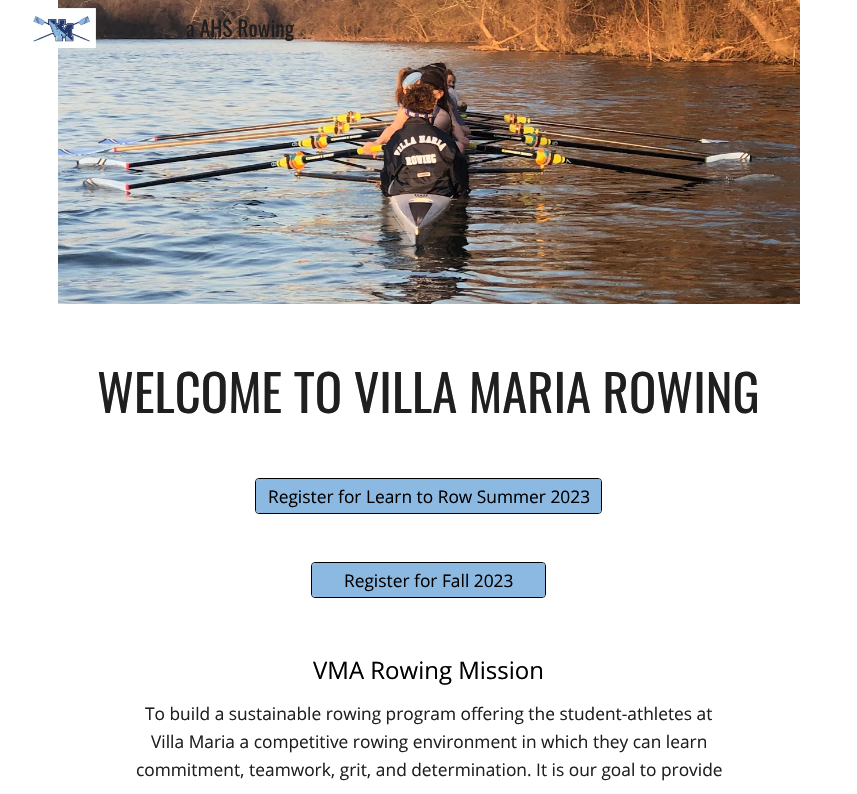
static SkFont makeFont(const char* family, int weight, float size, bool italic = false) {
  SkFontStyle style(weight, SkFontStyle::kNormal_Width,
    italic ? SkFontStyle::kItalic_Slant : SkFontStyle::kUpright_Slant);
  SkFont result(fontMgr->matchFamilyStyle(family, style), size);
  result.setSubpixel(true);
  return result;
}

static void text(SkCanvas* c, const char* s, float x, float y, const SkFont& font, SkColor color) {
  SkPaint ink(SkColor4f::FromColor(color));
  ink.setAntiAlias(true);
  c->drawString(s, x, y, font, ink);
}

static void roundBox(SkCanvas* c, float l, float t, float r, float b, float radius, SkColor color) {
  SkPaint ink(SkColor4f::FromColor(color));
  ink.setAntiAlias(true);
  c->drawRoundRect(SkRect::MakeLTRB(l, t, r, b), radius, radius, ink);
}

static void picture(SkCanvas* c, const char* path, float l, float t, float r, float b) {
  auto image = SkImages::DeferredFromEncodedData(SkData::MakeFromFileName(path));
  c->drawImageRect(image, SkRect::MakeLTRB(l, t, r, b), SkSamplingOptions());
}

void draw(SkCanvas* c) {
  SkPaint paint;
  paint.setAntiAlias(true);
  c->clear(0xffffffff);
  picture(c, "img_02.png", 58, 0, 800, 304);
  picture(c, "img_01.png", 33, 8, 96, 48);
  SkFont face1 = makeFont("Oswald", 400, 21.5f);
  text(c, "a AHS Rowing", 186, 37, face1, 0xff1f1f1f);
  SkFont face2 = makeFont("Oswald", 400, 50.7f);
  text(c, "WELCOME TO VILLA MARIA ROWING", 97, 413, face2, 0xff1f1f1f);
  paint.setStyle(SkPaint::kStroke_Style);
  paint.setStrokeWidth(1);
  paint.setColor(0xff000000);
  c->drawRoundRect(SkRect::MakeLTRB(255.5f, 478.5f, 601.5f, 513.5f), 3.5f, 3.5f, paint);
  roundBox(c, 256, 479, 601, 513, 3, 0xff8cb9e2);
  SkFont face3 = makeFont("Open Sans", 400, 17.35f);
  text(c, "Register for Learn to Row Summer 2023", 268, 503, face3, 0xff000000);
  c->drawRoundRect(SkRect::MakeLTRB(311.5f, 562.5f, 545.5f, 597.5f), 3.5f, 3.5f, paint);
  roundBox(c, 312, 563, 545, 597, 3, 0xff8cb9e2);
  text(c, "Register for Fall 2023", 344, 587, face3, 0xff000000);
  SkFont face4 = makeFont("Open Sans", 400, 24);
  text(c, "VMA Rowing Mission", 313, 679, face4, 0xff000000);
  text(c, "To build a sustainable rowing program offering the student-athletes at", 145, 720, face3, 0xff1f1f1f);
  text(c, "Villa Maria a competitive rowing environment in which they can learn", 151, 748, face3, 0xff1f1f1f);
  text(c, "commitment, teamwork, grit, and determination. It is our goal to provide", 136, 776, face3, 0xff1f1f1f);
}
